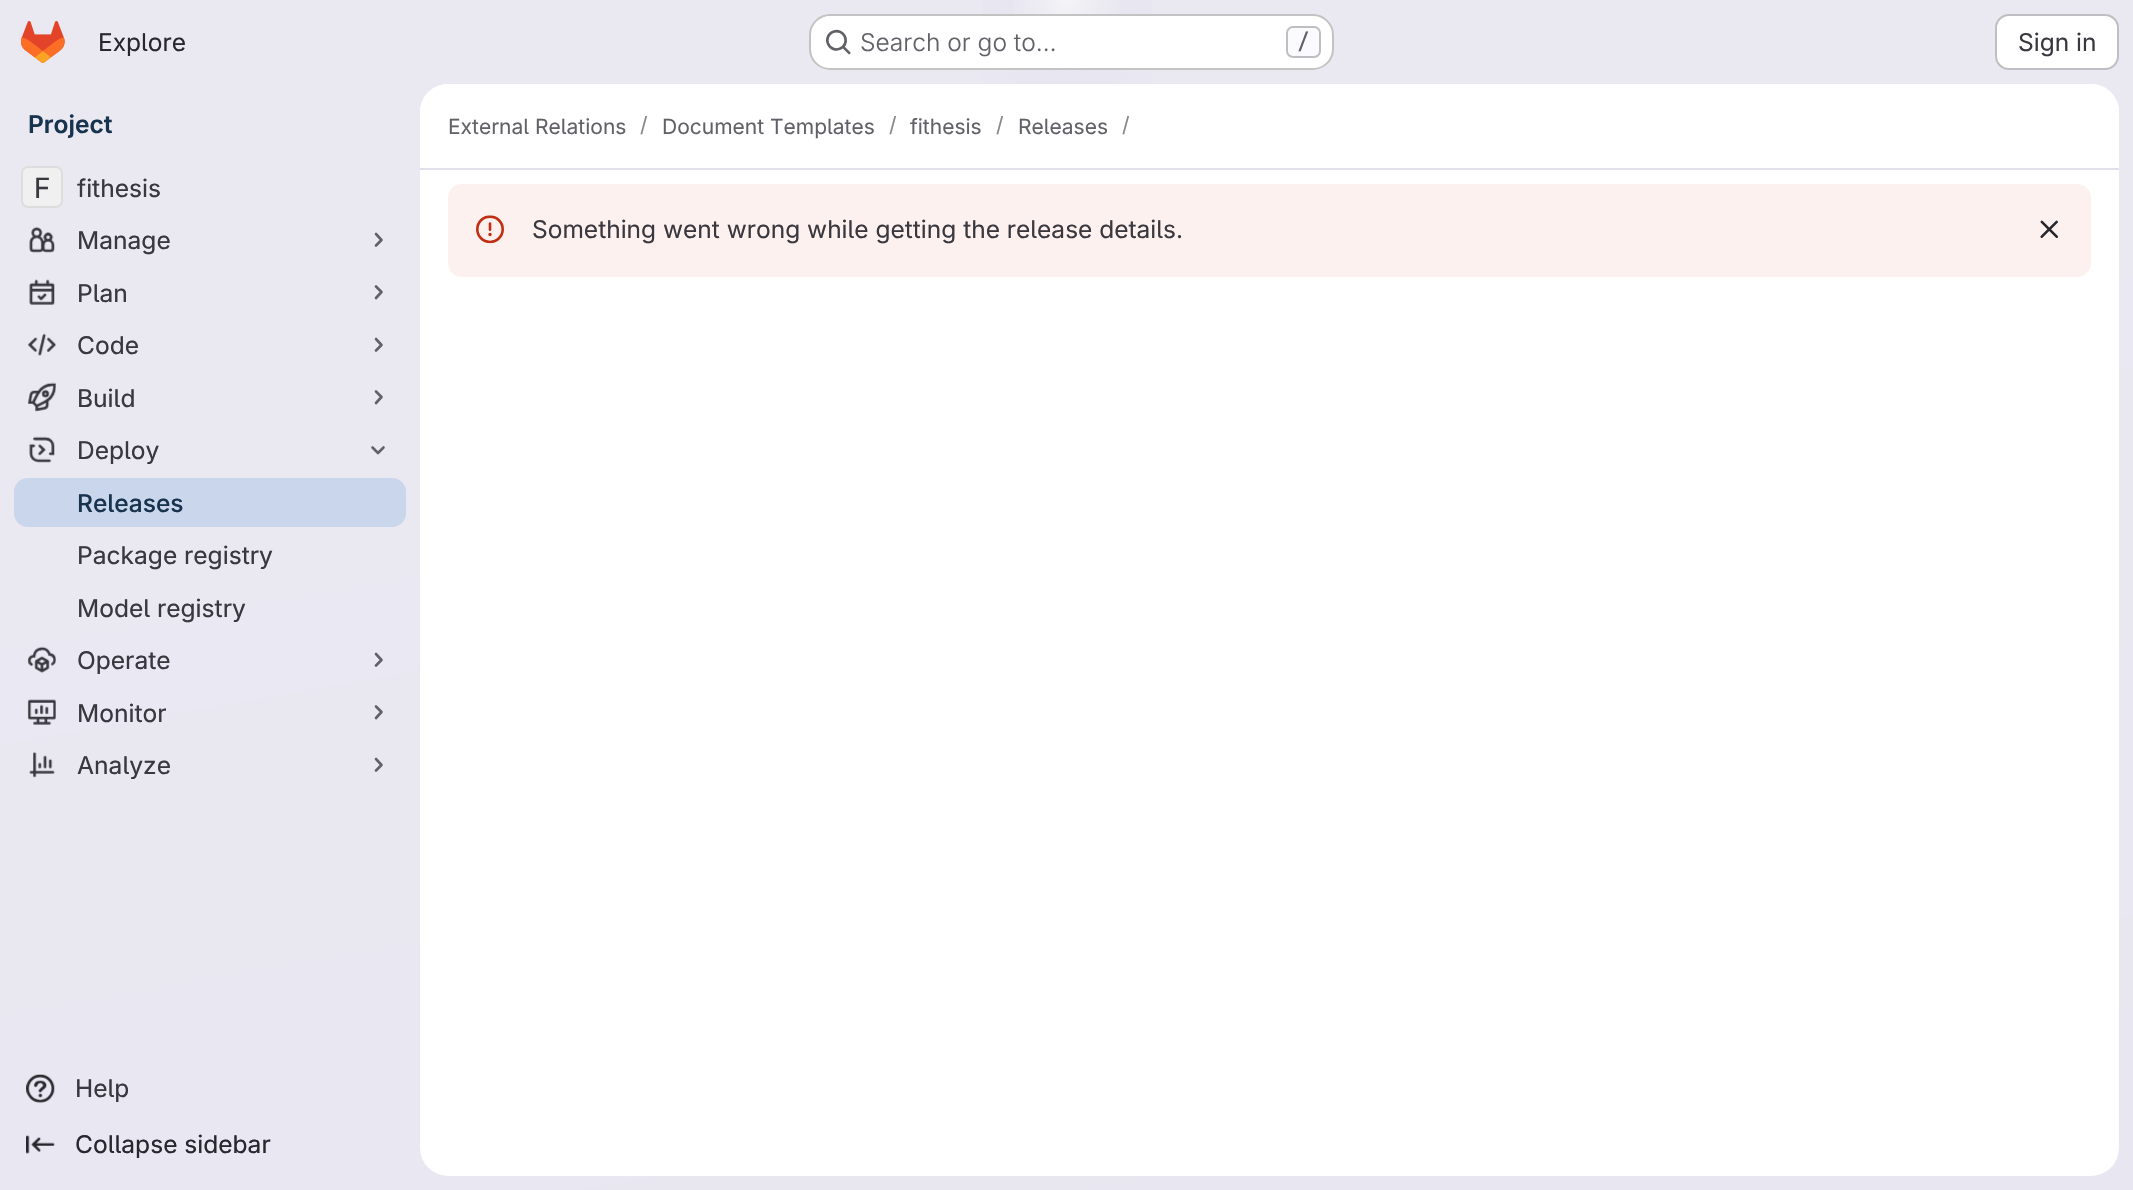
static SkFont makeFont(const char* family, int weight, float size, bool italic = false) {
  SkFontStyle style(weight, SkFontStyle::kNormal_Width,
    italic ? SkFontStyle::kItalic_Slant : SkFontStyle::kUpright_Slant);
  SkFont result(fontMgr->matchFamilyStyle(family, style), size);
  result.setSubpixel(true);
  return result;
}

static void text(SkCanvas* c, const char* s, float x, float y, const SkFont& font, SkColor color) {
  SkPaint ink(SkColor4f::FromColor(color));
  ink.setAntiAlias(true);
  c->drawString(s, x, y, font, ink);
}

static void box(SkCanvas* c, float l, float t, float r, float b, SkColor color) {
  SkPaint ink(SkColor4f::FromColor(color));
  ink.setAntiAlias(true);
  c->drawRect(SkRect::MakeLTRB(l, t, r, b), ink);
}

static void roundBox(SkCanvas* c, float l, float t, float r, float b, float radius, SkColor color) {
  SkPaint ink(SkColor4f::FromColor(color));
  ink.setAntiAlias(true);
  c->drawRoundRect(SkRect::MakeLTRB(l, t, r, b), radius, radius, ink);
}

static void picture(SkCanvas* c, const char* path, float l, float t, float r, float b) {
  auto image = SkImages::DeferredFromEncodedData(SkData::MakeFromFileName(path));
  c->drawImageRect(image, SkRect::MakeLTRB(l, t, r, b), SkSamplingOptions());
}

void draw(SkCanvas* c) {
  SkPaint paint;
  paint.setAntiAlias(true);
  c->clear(0xffffffff);
  {
    const SkColor colors[] = {0xffe8e6f0, 0xffeae9f2};
    const float stops[] = {0, 0.7f};
    const SkPoint ends[] = {{1201, 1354}, {933, -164}};
    paint.setShader(SkGradientShader::MakeLinear(ends, colors, stops, 2, SkTileMode::kClamp));
    paint.setAlpha(255);
  }
  c->drawRect(SkRect::MakeLTRB(0, 0, 2133, 1190), paint);
  {
    const SkColor colors[] = {0xffe4e2ed, 0x00e4e2ed};
    const float stops[] = {0, 0.11f};
    SkMatrix m = SkMatrix::Translate(1067, 0).preScale(1067, 1190);
    paint.setShader(SkGradientShader::MakeRadial({0, 0}, 1, colors, stops, 2, SkTileMode::kClamp, 0, &m));
    paint.setAlpha(255);
  }
  c->drawRect(SkRect::MakeLTRB(982, 0, 1152, 84), paint);
  {
    const SkColor colors[] = {0xffe4e2ec, 0x00e4e2ec};
    const float stops[] = {0, 0.08f};
    SkMatrix m = SkMatrix::Translate(1067, 0).preScale(1067, 1190);
    paint.setShader(SkGradientShader::MakeRadial({0, 0}, 1, colors, stops, 2, SkTileMode::kClamp, 0, &m));
    paint.setAlpha(255);
  }
  c->drawRect(SkRect::MakeLTRB(1031, 1, 1103, 39), paint);
  {
    const SkColor colors[] = {0x99ffffff, 0x00ffffff};
    const float stops[] = {0, 0.04f};
    paint.setShader(SkGradientShader::MakeRadial({1067, 0}, 1598, colors, stops, 2, SkTileMode::kClamp));
    paint.setAlpha(255);
  }
  c->drawRect(SkRect::MakeLTRB(1013, 0, 1121, 14), paint);
  picture(c, "img_01.png", 21, 21, 65, 63);
  SkFont face1 = makeFont("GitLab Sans", 400, 24.5f);
  text(c, "Explore", 98, 51, face1, 0xff28272d);
  roundBox(c, 809, 14, 1334, 70, 21, 0xffffffff);
  paint.setStyle(SkPaint::kStroke_Style);
  paint.setStrokeWidth(2);
  paint.setShader(nullptr);
  paint.setColor(0x3d050506);
  c->drawRoundRect(SkRect::MakeLTRB(810, 15, 1333, 69), 20, 20, paint);
  picture(c, "img_02.png", 826, 29, 851, 55);
  SkFont face2 = makeFont("GitLab Sans", 300, 24.5f);
  text(c, "Search or go to…", 860, 51, face2, 0xff626168);
  paint.setStyle(SkPaint::kFill_Style);
  paint.setColor(0xfffbfafd);
  c->drawRoundRect(SkRect::MakeLTRB(1287, 27, 1320, 57), 6, 6, paint);
  paint.setStyle(SkPaint::kStroke_Style);
  paint.setColor(0xffbfbfc3);
  c->drawRoundRect(SkRect::MakeLTRB(1287, 27, 1320, 57), 6, 6, paint);
  SkFont face3 = makeFont("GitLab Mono", 500, 21);
  text(c, "/", 1297, 49, face3, 0xff626168);
  paint.setStyle(SkPaint::kFill_Style);
  paint.setColor(0xffffffff);
  c->drawRoundRect(SkRect::MakeLTRB(1996, 15, 2118, 69), 13, 13, paint);
  paint.setStyle(SkPaint::kStroke_Style);
  paint.setColor(0xffbfbfc3);
  c->drawRoundRect(SkRect::MakeLTRB(1996, 15, 2118, 69), 13, 13, paint);
  text(c, "Sign in", 2018, 51, face1, 0xff3a383f);
  SkFont face4 = makeFont("GitLab Sans", 600, 24.5f);
  text(c, "Project", 28, 133, face4, 0xff18334e);
  roundBox(c, 21, 166, 63, 208, 7, 0xffffffff);
  roundBox(c, 21, 166, 63, 208, 7, 0x3dbfbfc3);
  paint.setColor(0xffddddde);
  c->drawRoundRect(SkRect::MakeLTRB(22, 167, 62, 207), 6, 6, paint);
  SkFont face5 = makeFont("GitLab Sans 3", 400, 28);
  text(c, "F", 34, 198, face5, 0xff3a383f);
  SkFont face6 = makeFont("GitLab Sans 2", 400, 24.5f);
  text(c, "fithesis", 77, 197, face6, 0xff3a383f);
  picture(c, "img_03.png", 29, 226, 55, 253);
  text(c, "Manage", 77, 249, face6, 0xff3a383f);
  paint.setStrokeWidth(2.6f);
  paint.setStrokeCap(SkPaint::kRound_Cap);
  paint.setStrokeJoin(SkPaint::kRound_Join);
  paint.setColor(0xff626168);
  c->drawPath(SkPathBuilder().moveTo(376, 234).lineTo(381.5f, 240).lineTo(376, 245.5f).detach(), paint);
  picture(c, "img_04.png", 29, 279, 55, 305);
  text(c, "Plan", 77, 302, face6, 0xff3a383f);
  c->drawPath(SkPathBuilder().moveTo(376, 286.5f).lineTo(381.5f, 292).lineTo(376, 298).detach(), paint);
  picture(c, "img_05.png", 28, 333, 56, 356);
  text(c, "Code", 77, 354, face6, 0xff3a383f);
  c->drawPath(SkPathBuilder().moveTo(376, 339).lineTo(381.5f, 345).lineTo(376, 350.5f).detach(), paint);
  picture(c, "img_06.png", 28, 382, 56, 412);
  text(c, "Build", 77, 407, face6, 0xff3a383f);
  c->drawPath(SkPathBuilder().moveTo(376, 391.5f).lineTo(381.5f, 397).lineTo(376, 403).detach(), paint);
  picture(c, "img_07.png", 29, 436, 55, 463);
  text(c, "Deploy", 77, 459, face6, 0xff3a383f);
  c->drawPath(SkPathBuilder().moveTo(383.5f, 447.5f).lineTo(378, 453).lineTo(372.5f, 447.5f).detach(), paint);
  roundBox(c, 14, 478, 406, 527, 14, 0xffc9d6eb);
  SkFont face7 = makeFont("GitLab Sans", 500, 24.5f);
  text(c, "Releases", 77, 512, face7, 0xff18334e);
  text(c, "Package registry", 77, 564, face6, 0xff3a383f);
  text(c, "Model registry", 77, 617, face6, 0xff3a383f);
  picture(c, "img_08.png", 27, 646, 56, 673);
  text(c, "Operate", 77, 669, face6, 0xff3a383f);
  c->drawPath(SkPathBuilder().moveTo(376, 654).lineTo(381.5f, 660).lineTo(376, 665.5f).detach(), paint);
  picture(c, "img_09.png", 27, 699, 56, 725);
  text(c, "Monitor", 77, 722, face6, 0xff3a383f);
  c->drawPath(SkPathBuilder().moveTo(376, 706.5f).lineTo(381.5f, 712).lineTo(376, 718).detach(), paint);
  picture(c, "img_10.png", 29, 751, 55, 778);
  text(c, "Analyze", 77, 774, face6, 0xff3a383f);
  c->drawPath(SkPathBuilder().moveTo(376, 759).lineTo(381.5f, 765).lineTo(376, 770.5f).detach(), paint);
  picture(c, "img_11.png", 26, 1074, 55, 1103);
  text(c, "Help", 75, 1097, face6, 0xff3a383f);
  picture(c, "img_12.png", 26, 1135, 55, 1154);
  text(c, "Collapse sidebar", 75, 1153, face6, 0xff28272d);
  roundBox(c, 420, 84, 2119, 1176, 28, 0xffffffff);
  paint.setStyle(SkPaint::kFill_Style);
  paint.setColor(0xffffffff);
  c->drawPath(SkPathBuilder().moveTo(448, 84).lineTo(2091, 84).cubicTo(2106.5f, 84, 2119, 96.5f, 2119, 112).lineTo(2119, 170).lineTo(420, 170).lineTo(420, 112).cubicTo(420, 96.5f, 432.5f, 84, 448, 84).close().detach(), paint);
  box(c, 420, 168, 2119, 170, 0xffe1dfec);
  SkFont face8 = makeFont("GitLab Sans", 400, 21);
  text(c, "External Relations", 448, 134, face8, 0xff626168);
  text(c, "/", 640, 132, face8, 0xff89888d);
  text(c, "Document Templates", 662, 134, face8, 0xff626168);
  text(c, "/", 889, 132, face8, 0xff89888d);
  text(c, "fithesis", 910, 134, face8, 0xff626168);
  text(c, "/", 996, 132, face8, 0xff89888d);
  text(c, "Releases", 1018, 134, face8, 0xff626168);
  text(c, "/", 1122, 132, face8, 0xff89888d);
  roundBox(c, 448, 184, 2091, 277, 14, 0xfffcf1ef);
  picture(c, "img_13.png", 476, 215, 504, 244);
  text(c, "Something went wrong while getting the release details.", 532, 238, face1, 0xff3a383f);
  picture(c, "img_14.png", 2040, 220, 2058, 238);
}
